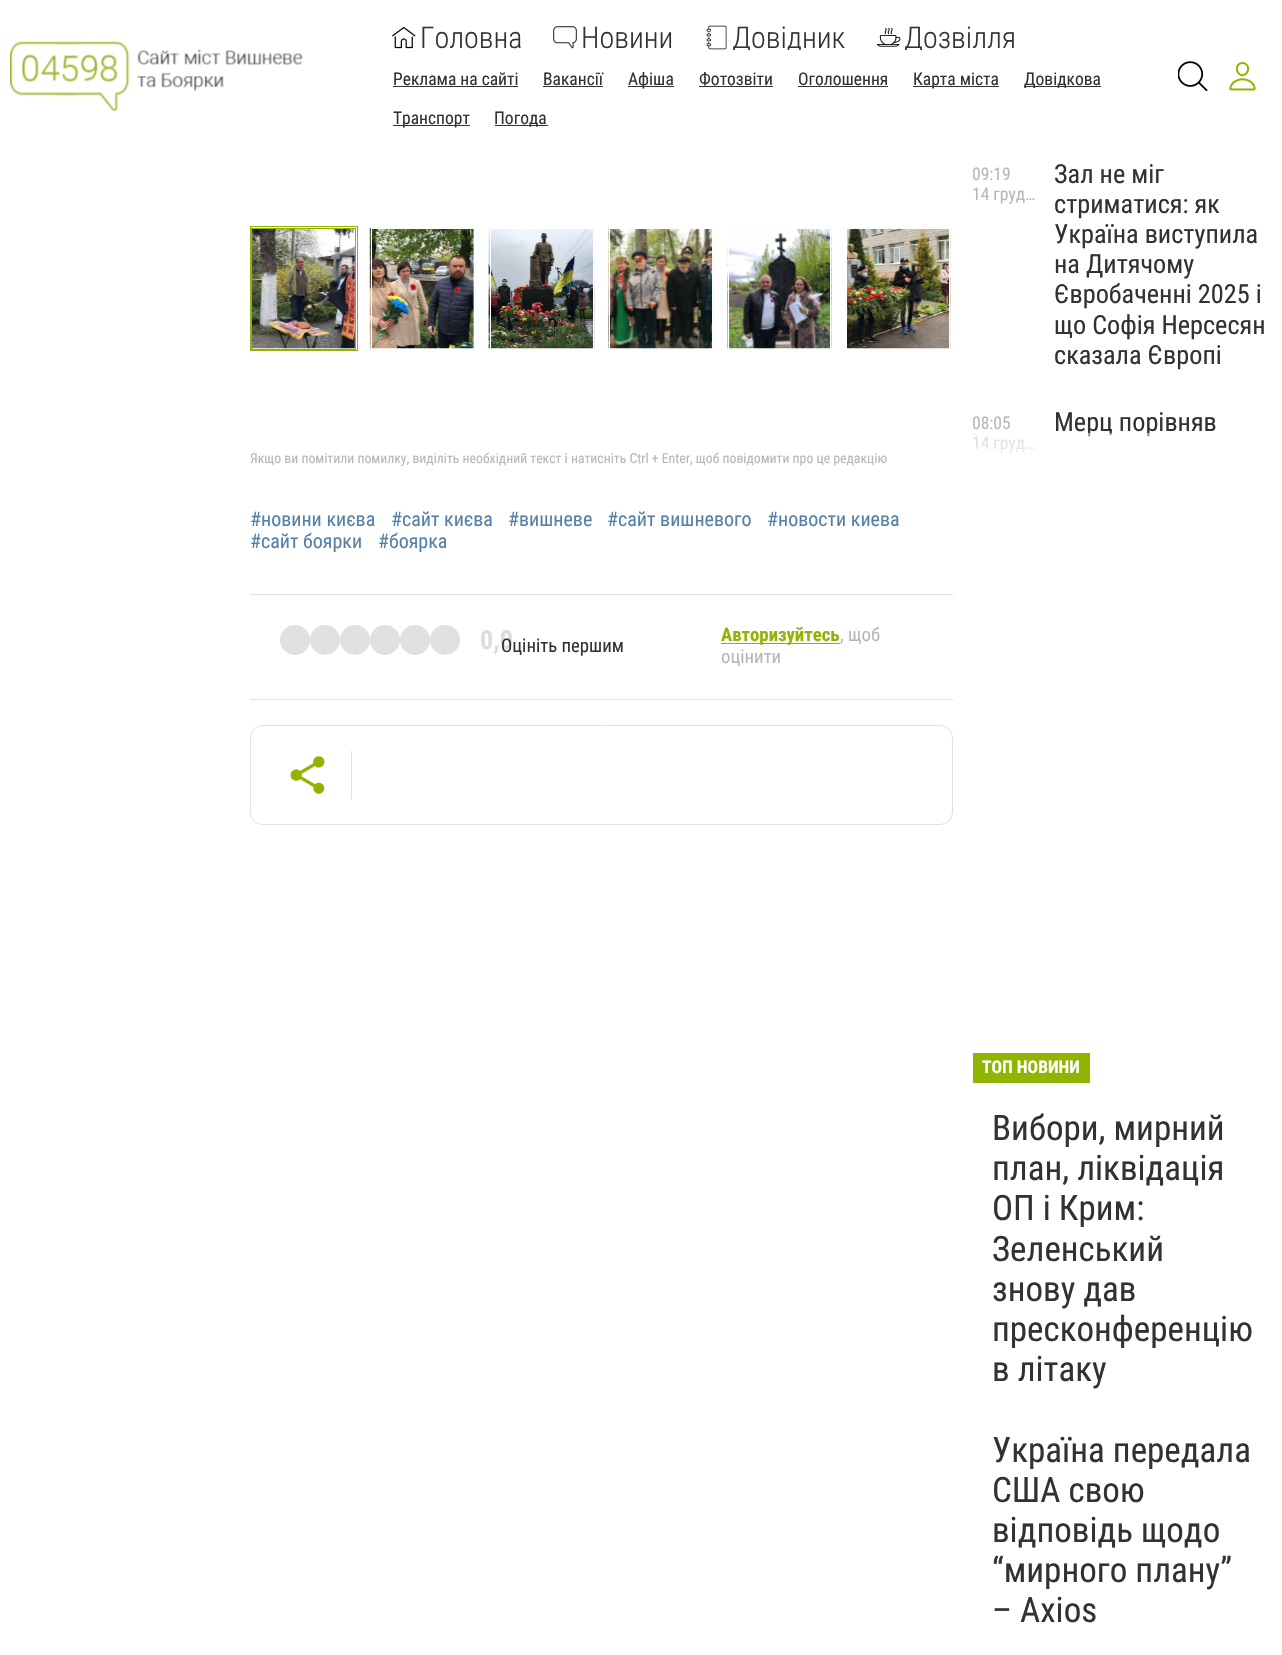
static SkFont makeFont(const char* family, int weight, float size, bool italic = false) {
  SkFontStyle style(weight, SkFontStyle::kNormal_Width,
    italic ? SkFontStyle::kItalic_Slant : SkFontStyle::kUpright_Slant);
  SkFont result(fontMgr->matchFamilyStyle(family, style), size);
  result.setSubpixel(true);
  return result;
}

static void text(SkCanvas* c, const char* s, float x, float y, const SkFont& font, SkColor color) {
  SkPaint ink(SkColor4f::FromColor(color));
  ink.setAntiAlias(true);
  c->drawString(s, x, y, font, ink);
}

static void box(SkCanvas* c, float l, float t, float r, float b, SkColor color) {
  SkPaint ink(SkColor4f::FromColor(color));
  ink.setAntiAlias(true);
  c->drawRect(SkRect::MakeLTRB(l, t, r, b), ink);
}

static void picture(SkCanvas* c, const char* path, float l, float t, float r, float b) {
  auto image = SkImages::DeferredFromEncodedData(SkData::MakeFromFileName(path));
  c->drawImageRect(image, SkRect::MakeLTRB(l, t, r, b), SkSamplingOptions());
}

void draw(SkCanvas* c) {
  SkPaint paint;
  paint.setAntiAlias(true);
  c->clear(0xffffffff);
  picture(c, "img_01.png", 10, 41, 303, 111);
  picture(c, "img_02.png", 392, 26, 416, 49);
  SkFont face1 = makeFont("Roboto Condensed", 300, 30);
  text(c, "Головна", 420, 48, face1, 0xff323232);
  picture(c, "img_03.png", 553, 26, 577, 49);
  text(c, "Новини", 581, 48, face1, 0xff323232);
  picture(c, "img_04.png", 706, 25, 727, 50);
  c->save();
  c->clipRect(SkRect::MakeLTRB(704, 25, 846, 50));
  text(c, "Довідник", 732, 48, face1, 0xff323232);
  c->restore();
  picture(c, "img_05.png", 876, 28, 901, 47);
  c->save();
  c->clipRect(SkRect::MakeLTRB(876, 25, 1016, 50));
  text(c, "Дозвілля", 904, 48, face1, 0xff323232);
  c->restore();
  SkFont face2 = makeFont("Roboto Condensed", 400, 17.5f);
  text(c, "Реклама на сайті", 393, 85, face2, 0xff323232);
  box(c, 393, 86, 518, 87, 0xff323232);
  text(c, "Вакансії", 543, 85, face2, 0xff323232);
  box(c, 543, 86, 603, 87, 0xff323232);
  box(c, 628, 86, 674, 87, 0xff323232);
  text(c, "Афіша", 628, 85, face2, 0xff323232);
  text(c, "Фотозвіти", 699, 85, face2, 0xff323232);
  box(c, 699, 86, 773, 87, 0xff323232);
  text(c, "Оголошення", 798, 85, face2, 0xff323232);
  box(c, 798, 86, 888, 87, 0xff323232);
  box(c, 913, 86, 999, 87, 0xff323232);
  text(c, "Карта міста", 913, 85, face2, 0xff323232);
  box(c, 1024, 86, 1101, 87, 0xff323232);
  text(c, "Довідкова", 1024, 85, face2, 0xff323232);
  box(c, 393, 125, 470, 126, 0xff323232);
  text(c, "Транспорт", 393, 124, face2, 0xff323232);
  box(c, 495, 125, 548, 126, 0xff323232);
  text(c, "Погода", 494, 124, face2, 0xff323232);
  picture(c, "img_06.png", 1178, 61, 1208, 91);
  picture(c, "img_07.png", 1229, 62, 1256, 91);
  paint.setStyle(SkPaint::kStroke_Style);
  paint.setStrokeWidth(1);
  paint.setColor(0xff90b400);
  c->drawRect(SkRect::MakeLTRB(250.5f, 226.5f, 357.5f, 350.5f), paint);
  picture(c, "img_08.png", 252, 229, 355, 349);
  c->drawRect(SkRect::MakeLTRB(251.5f, 228.5f, 355.5f, 349.5f), paint);
  picture(c, "img_09.png", 369, 228, 474, 349);
  paint.setColor(0xffffffff);
  c->drawRect(SkRect::MakeLTRB(371.5f, 228.5f, 474.5f, 349.5f), paint);
  picture(c, "img_10.png", 488, 228, 595, 349);
  c->drawRect(SkRect::MakeLTRB(490.5f, 228.5f, 593.5f, 349.5f), paint);
  picture(c, "img_11.png", 608, 228, 714, 349);
  c->drawRect(SkRect::MakeLTRB(609.5f, 228.5f, 712.5f, 349.5f), paint);
  picture(c, "img_12.png", 727, 228, 832, 349);
  c->drawRect(SkRect::MakeLTRB(728.5f, 228.5f, 830.5f, 349.5f), paint);
  picture(c, "img_13.png", 847, 228, 951, 349);
  c->drawRect(SkRect::MakeLTRB(846.5f, 228.5f, 949.5f, 349.5f), paint);
  SkFont face3 = makeFont("Roboto Condensed", 400, 13.75f);
  text(c, "Якщо ви помітили помилку, виділіть необхідний текст і натисніть Ctrl + Enter, щоб повідомити про це редакцію", 250, 463, face3, 0xffb7b7b7);
  SkFont face4 = makeFont("Roboto Condensed", 400, 20);
  text(c, "#новини києва", 250, 526, face4, 0xff5680a6);
  text(c, "#сайт києва", 391, 526, face4, 0xff5680a6);
  text(c, "#вишневе", 508, 526, face4, 0xff5680a6);
  text(c, "#сайт вишневого", 607, 526, face4, 0xff5680a6);
  text(c, "#новости киева", 767, 526, face4, 0xff5680a6);
  text(c, "#сайт боярки", 250, 548, face4, 0xff5680a6);
  text(c, "#боярка", 378, 548, face4, 0xff5680a6);
  box(c, 250, 594, 953, 595, 0xffe0e0e0);
  box(c, 250, 699, 953, 700, 0xffe0e0e0);
  paint.setStyle(SkPaint::kFill_Style);
  paint.setColor(0xffe0e0e0);
  c->drawCircle(295, 640, 15, paint);
  c->drawCircle(325, 640, 15, paint);
  c->drawCircle(355, 640, 15, paint);
  c->drawCircle(385, 640, 15, paint);
  c->drawCircle(415, 640, 15, paint);
  c->drawCircle(445, 640, 15, paint);
  SkFont face5 = makeFont("Roboto Condensed", 700, 26.25f);
  text(c, "0,0", 480, 649, face5, 0xffdcdcdc);
  SkFont face6 = makeFont("Roboto Condensed", 400, 18.75f);
  text(c, "Оцініть першим", 501, 652, face6, 0xff323232);
  box(c, 721, 643, 840, 644, 0xff90b400);
  SkFont face7 = makeFont("Roboto Condensed", 700, 18.75f);
  text(c, "Авторизуйтесь", 721, 641, face7, 0xff90b400);
  text(c, ", щоб", 840, 641, face6, 0xffb7b7b7);
  text(c, "оцінити", 721, 663, face6, 0xffb7b7b7);
  paint.setStyle(SkPaint::kStroke_Style);
  c->drawRoundRect(SkRect::MakeLTRB(250.5f, 725.5f, 952.5f, 824.5f), 12.5f, 12.5f, paint);
  picture(c, "img_14.png", 290, 756, 325, 794);
  box(c, 351, 751, 352, 799, 0xffe0e0e0);
  c->save();
  c->clipRect(SkRect::MakeLTRB(973, 164, 1043, 184));
  text(c, "09:19", 972, 180, face2, 0xffb7b7b7);
  c->restore();
  text(c, "14 груд…", 972, 200, face2, 0xffb7b7b7);
  SkFont face8 = makeFont("Roboto Condensed", 400, 26.25f);
  text(c, "Зал не міг", 1054, 183, face8, 0xff323232);
  text(c, "стриматися: як", 1054, 213, face8, 0xff323232);
  text(c, "Україна виступила", 1054, 243, face8, 0xff323232);
  text(c, "на Дитячому", 1054, 273, face8, 0xff323232);
  text(c, "Євробаченні 2025 і", 1054, 303, face8, 0xff323232);
  text(c, "що Софія Нерсесян", 1054, 334, face8, 0xff323232);
  text(c, "сказала Європі", 1054, 364, face8, 0xff323232);
  c->save();
  c->clipRect(SkRect::MakeLTRB(973, 413, 1043, 433));
  text(c, "08:05", 972, 429, face2, 0xffb7b7b7);
  c->restore();
  text(c, "14 груд…", 972, 449, face2, 0xffb7b7b7);
  text(c, "Мерц порівняв", 1054, 431, face8, 0xff323232);
  box(c, 973, 433, 1150, 453, 0x80ffffff);
  paint.setStyle(SkPaint::kFill_Style);
  {
    const SkColor colors[] = {0xffffffff, 0xbfffffff, 0x80ffffff, 0x00ffffff};
    const float stops[] = {0, 0.33f, 0.67f, 1};
    const SkPoint ends[] = {{1123, 508}, {1123, 433}};
    paint.setShader(SkGradientShader::MakeLinear(ends, colors, stops, 4, SkTileMode::kClamp));
    paint.setAlpha(255);
  }
  c->drawRect(SkRect::MakeLTRB(973, 434, 1150, 453), paint);
  box(c, 973, 1053, 1090, 1083, 0xff90b400);
  SkFont face9 = makeFont("Roboto Condensed", 700, 17.5f);
  text(c, "ТОП НОВИНИ", 982, 1073, face9, 0xffffffff);
  SkFont face10 = makeFont("Roboto Condensed", 400, 35);
  text(c, "Вибори, мирний", 992, 1140, face10, 0xff323232);
  text(c, "план, ліквідація", 992, 1180, face10, 0xff323232);
  text(c, "ОП і Крим:", 992, 1220, face10, 0xff323232);
  text(c, "Зеленський", 992, 1261, face10, 0xff323232);
  text(c, "знову дав", 992, 1301, face10, 0xff323232);
  text(c, "пресконференцію", 992, 1341, face10, 0xff323232);
  text(c, "в літаку", 992, 1381, face10, 0xff323232);
  text(c, "Україна передала", 992, 1462, face10, 0xff323232);
  text(c, "США свою", 992, 1502, face10, 0xff323232);
  text(c, "відповідь щодо", 992, 1542, face10, 0xff323232);
  text(c, "“мирного плану”", 992, 1582, face10, 0xff323232);
  text(c, "– Axios", 992, 1622, face10, 0xff323232);
}
